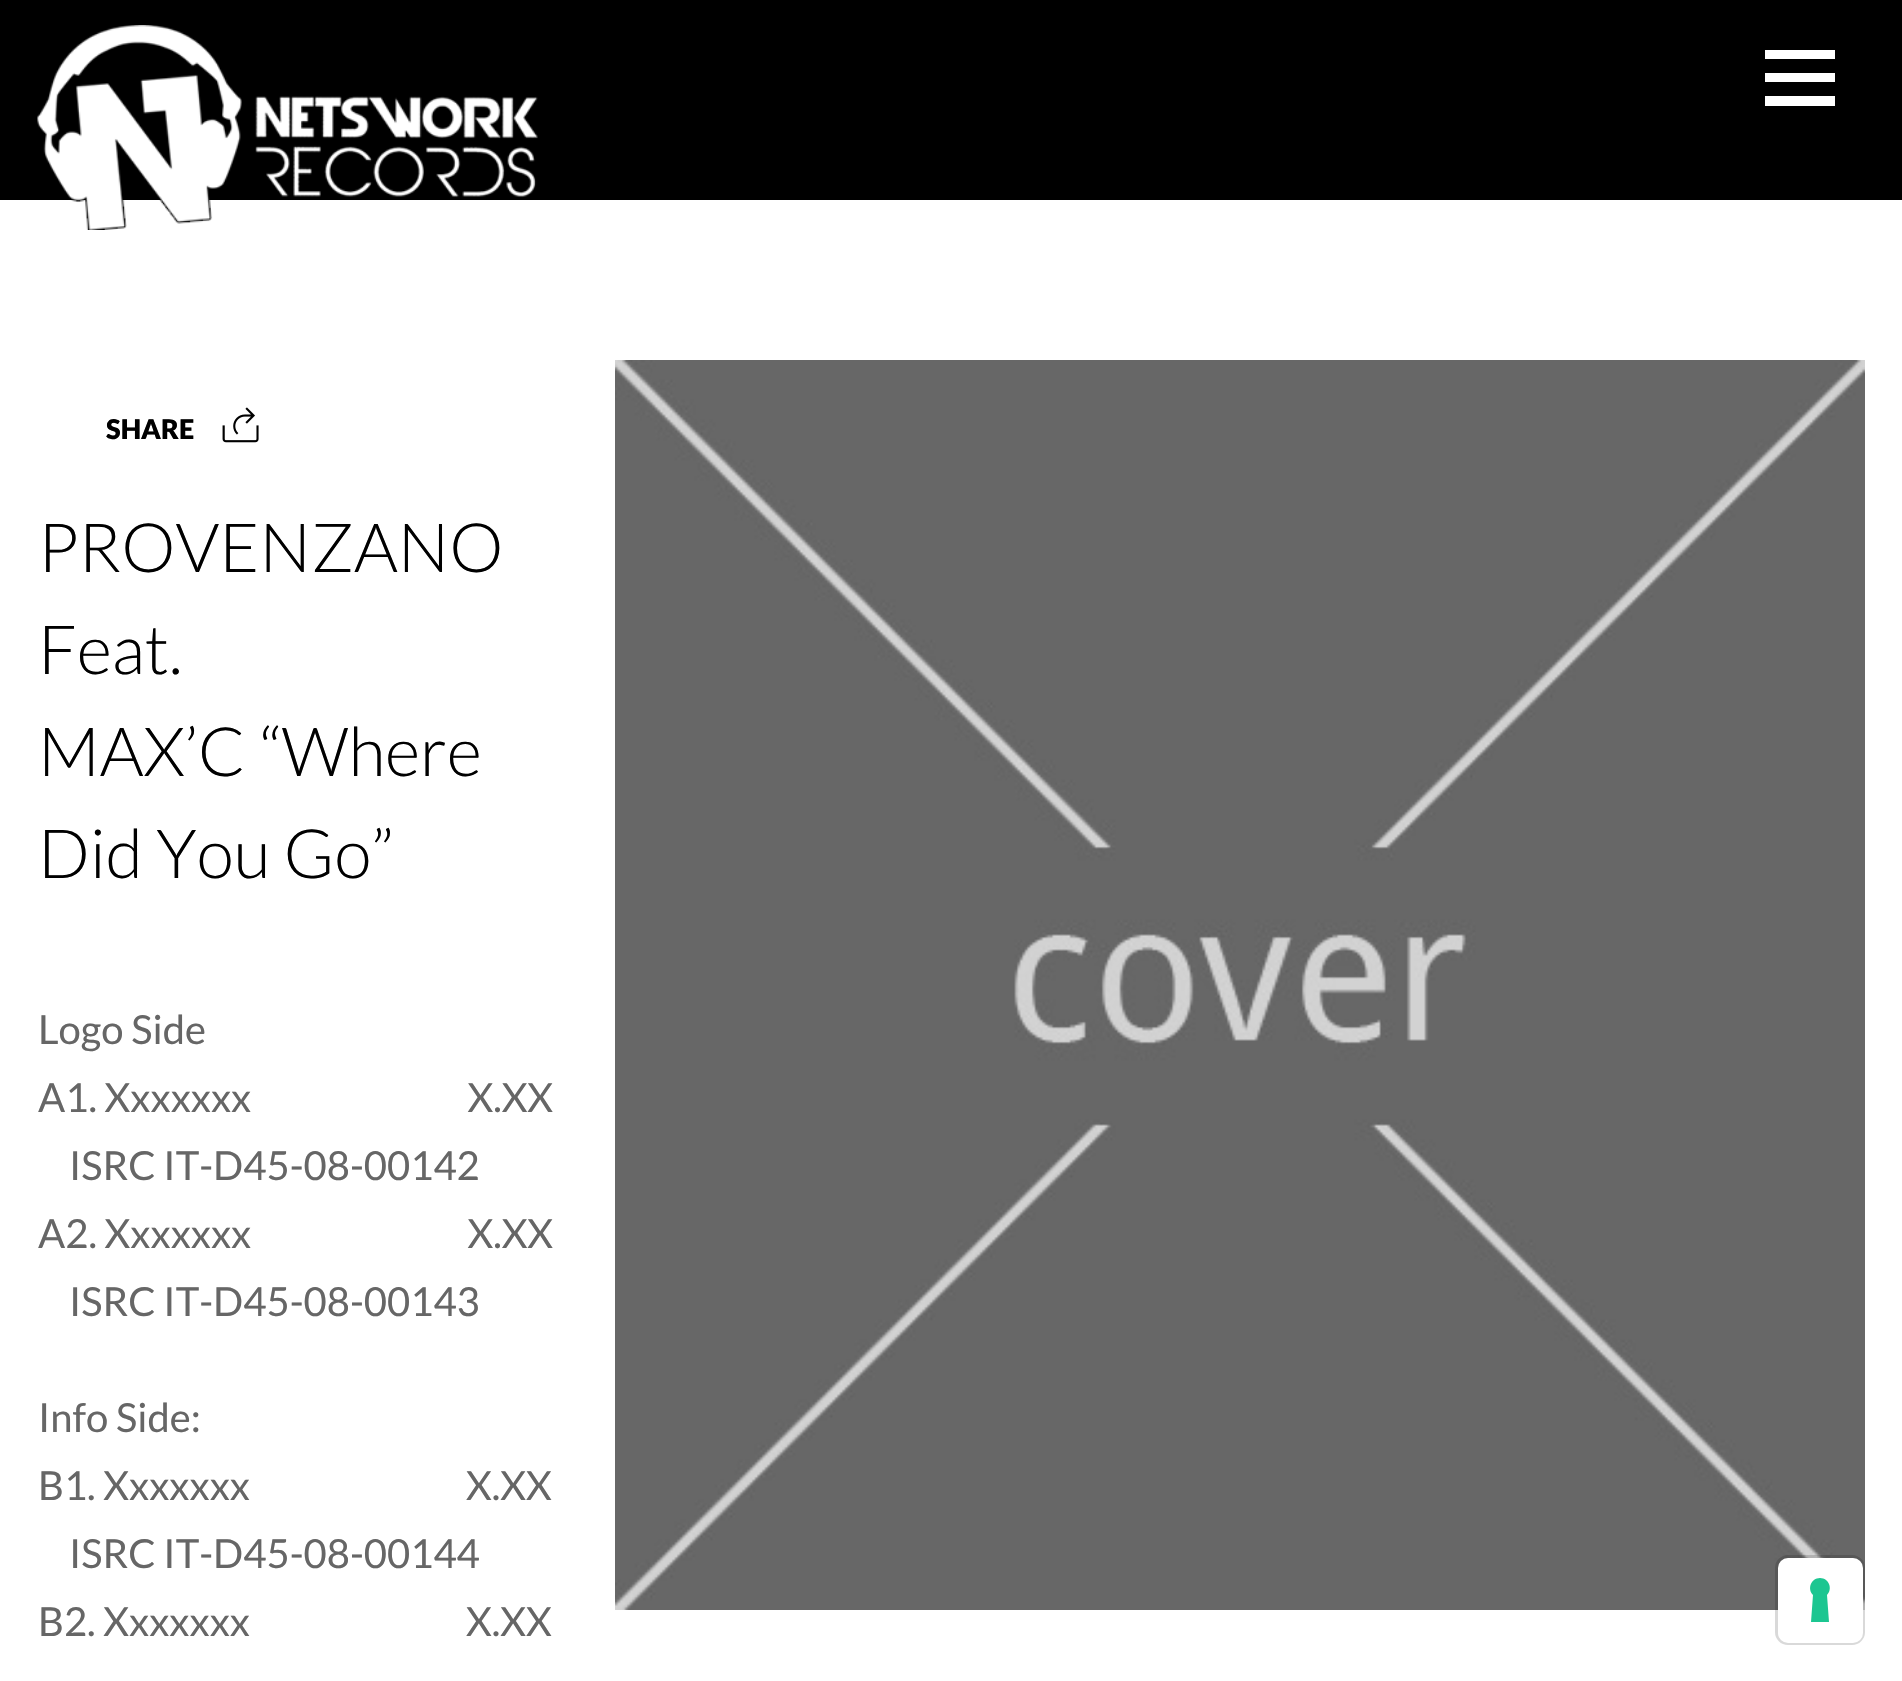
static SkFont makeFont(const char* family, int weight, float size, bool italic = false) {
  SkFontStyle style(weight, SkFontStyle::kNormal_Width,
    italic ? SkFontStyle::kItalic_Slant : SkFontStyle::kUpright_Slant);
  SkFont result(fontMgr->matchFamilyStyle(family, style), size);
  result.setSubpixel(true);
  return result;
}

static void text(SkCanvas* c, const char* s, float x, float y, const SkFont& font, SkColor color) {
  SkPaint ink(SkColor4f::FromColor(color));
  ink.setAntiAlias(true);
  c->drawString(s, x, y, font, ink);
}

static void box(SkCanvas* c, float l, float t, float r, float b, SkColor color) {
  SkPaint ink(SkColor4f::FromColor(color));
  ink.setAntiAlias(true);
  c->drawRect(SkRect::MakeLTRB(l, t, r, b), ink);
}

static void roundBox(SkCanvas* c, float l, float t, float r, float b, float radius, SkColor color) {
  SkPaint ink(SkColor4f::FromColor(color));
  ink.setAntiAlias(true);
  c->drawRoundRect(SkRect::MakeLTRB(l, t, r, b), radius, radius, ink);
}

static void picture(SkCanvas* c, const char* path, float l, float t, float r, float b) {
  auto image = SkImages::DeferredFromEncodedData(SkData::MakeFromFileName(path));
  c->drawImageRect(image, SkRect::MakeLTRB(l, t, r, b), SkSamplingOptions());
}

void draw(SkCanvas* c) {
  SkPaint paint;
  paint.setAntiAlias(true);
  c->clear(0xffffffff);
  box(c, 0, 0, 1902, 200, 0xff000000);
  picture(c, "img_01.png", 37, 25, 538, 230);
  paint.setColor(0xffffffff);
  c->drawPath(SkPathBuilder().moveTo(1835, 50).lineTo(1835, 59).lineTo(1765, 59).lineTo(1765, 50).close().moveTo(1765, 82).lineTo(1835, 82).lineTo(1835, 73).lineTo(1765, 73).close().moveTo(1765, 106).lineTo(1835, 106).lineTo(1835, 96).lineTo(1765, 96).close().detach(), paint);
  SkFont face1 = makeFont("Lato", 900, 27);
  text(c, "SHARE", 106, 439, face1, 0xff000000);
  picture(c, "img_02.png", 222, 407, 259, 443);
  picture(c, "img_03.png", 615, 360, 1865, 1610);
  SkFont face2 = makeFont("Lato", 300, 68);
  text(c, "PROVENZANO", 38, 572, face2, 0xff000000);
  text(c, "Feat.", 38, 674, face2, 0xff000000);
  text(c, "MAX’C “Where", 38, 776, face2, 0xff000000);
  text(c, "Did You Go”", 38, 878, face2, 0xff000000);
  SkFont face3 = makeFont("Lato", 400, 40);
  text(c, "Logo Side", 38, 1044, face3, 0xff666666);
  text(c, "A1. Xxxxxxx                            X.XX", 38, 1112, face3, 0xff666666);
  text(c, "ISRC IT-D45-08-00142", 69, 1180, face3, 0xff666666);
  text(c, "A2. Xxxxxxx                            X.XX", 38, 1248, face3, 0xff666666);
  text(c, "ISRC IT-D45-08-00143", 69, 1316, face3, 0xff666666);
  text(c, "Info Side:", 38, 1432, face3, 0xff666666);
  text(c, "B1. Xxxxxxx                            X.XX", 38, 1500, face3, 0xff666666);
  text(c, "ISRC IT-D45-08-00144", 69, 1568, face3, 0xff666666);
  text(c, "B2. Xxxxxxx                            X.XX", 38, 1636, face3, 0xff666666);
  paint.setStyle(SkPaint::kStroke_Style);
  paint.setStrokeWidth(3);
  paint.setColor(0x26000000);
  c->drawRoundRect(SkRect::MakeLTRB(1776.5f, 1556.5f, 1863.5f, 1643.5f), 11.5f, 11.5f, paint);
  roundBox(c, 1778, 1558, 1863, 1643, 10, 0xffffffff);
  paint.setStyle(SkPaint::kFill_Style);
  paint.setColor(0xff1cc691);
  c->drawPath(SkPathBuilder(SkPathFillType::kEvenOdd).moveTo(1820, 1578).cubicTo(1829, 1578, 1833, 1589, 1827, 1595).lineTo(1829, 1622).lineTo(1811, 1622).lineTo(1813, 1595).cubicTo(1807, 1589, 1811, 1578, 1820, 1578).close().detach(), paint);
}
